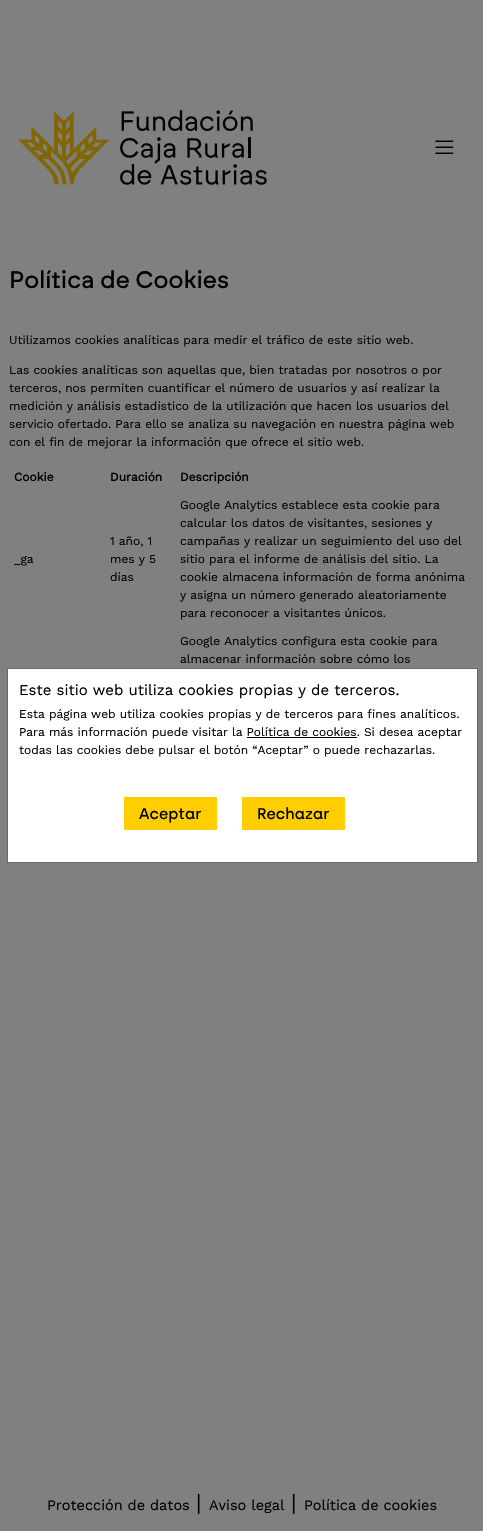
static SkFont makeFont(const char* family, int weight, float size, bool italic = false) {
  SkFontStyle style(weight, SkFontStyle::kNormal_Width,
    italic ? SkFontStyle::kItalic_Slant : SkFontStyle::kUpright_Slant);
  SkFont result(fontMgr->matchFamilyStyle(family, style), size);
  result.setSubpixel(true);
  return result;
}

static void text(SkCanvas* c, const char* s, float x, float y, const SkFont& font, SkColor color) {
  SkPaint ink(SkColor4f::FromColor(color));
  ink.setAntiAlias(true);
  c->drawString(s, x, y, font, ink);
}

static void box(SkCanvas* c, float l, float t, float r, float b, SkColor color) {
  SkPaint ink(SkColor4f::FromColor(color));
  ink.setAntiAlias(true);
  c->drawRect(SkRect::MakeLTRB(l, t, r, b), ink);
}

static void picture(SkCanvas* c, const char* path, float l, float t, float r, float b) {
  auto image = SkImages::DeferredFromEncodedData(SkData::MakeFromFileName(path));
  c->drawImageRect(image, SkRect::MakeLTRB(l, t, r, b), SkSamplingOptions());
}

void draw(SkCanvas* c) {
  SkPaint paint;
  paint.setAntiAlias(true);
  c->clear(0xff808080);
  picture(c, "img_01.png", 18, 110, 267, 185);
  picture(c, "img_02.png", 435, 140, 454, 154);
  SkFont face1 = makeFont("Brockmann", 500, 24);
  text(c, "Política de Cookies", 9, 288, face1, 0xff000000);
  SkFont face2 = makeFont("Work Sans", 400, 12);
  text(c, "Utilizamos cookies analíticas para medir el tráfico de este sitio web.", 9, 344, face2, 0xff000000);
  text(c, "Las cookies analíticas son aquellas que, bien tratadas por nosotros o por", 9, 374, face2, 0xff000000);
  text(c, "terceros, nos permiten cuantificar el número de usuarios y así realizar la", 9, 392, face2, 0xff000000);
  text(c, "medición y análisis estadístico de la utilización que hacen los usuarios del", 9, 410, face2, 0xff000000);
  text(c, "servicio ofertado. Para ello se analiza su navegación en nuestra página web", 9, 428, face2, 0xff000000);
  text(c, "con el fin de mejorar la información que ofrece el sitio web.", 9, 446, face2, 0xff000000);
  SkFont face3 = makeFont("Work Sans", 700, 12);
  text(c, "Cookie", 14, 481, face3, 0xff000000);
  text(c, "Duración", 110, 481, face3, 0xff000000);
  text(c, "Descripción", 180, 481, face3, 0xff000000);
  text(c, "_ga", 14, 563, face2, 0xff000000);
  text(c, "1 año, 1", 110, 545, face2, 0xff000000);
  text(c, "mes y 5", 110, 563, face2, 0xff000000);
  text(c, "días", 110, 581, face2, 0xff000000);
  text(c, "Google Analytics establece esta cookie para", 180, 509, face2, 0xff000000);
  text(c, "calcular los datos de visitantes, sesiones y", 180, 527, face2, 0xff000000);
  text(c, "campañas y realizar un seguimiento del uso del", 180, 545, face2, 0xff000000);
  text(c, "sitio para el informe de análisis del sitio. La", 180, 563, face2, 0xff000000);
  text(c, "cookie almacena información de forma anónima", 180, 581, face2, 0xff000000);
  text(c, "y asigna un número generado aleatoriamente", 180, 599, face2, 0xff000000);
  text(c, "para reconocer a visitantes únicos.", 180, 617, face2, 0xff000000);
  text(c, "Google Analytics configura esta cookie para", 180, 645, face2, 0xff000000);
  text(c, "almacenar información sobre cómo los", 180, 663, face2, 0xff000000);
  paint.setColor(0xffffffff);
  c->drawRect(SkRect::MakeLTRB(7.5f, 668.5f, 477.5f, 862.5f), paint);
  paint.setStyle(SkPaint::kStroke_Style);
  paint.setStrokeWidth(1);
  paint.setColor(0xff696969);
  c->drawRect(SkRect::MakeLTRB(7.5f, 668.5f, 477.5f, 862.5f), paint);
  SkFont face4 = makeFont("Work Sans", 400, 15);
  text(c, "Este sitio web utiliza cookies propias y de terceros.", 19, 695, face4, 0xff000000);
  text(c, "Esta página web utiliza cookies propias y de terceros para fines analíticos.", 19, 718, face2, 0xff000000);
  text(c, "Para más información puede visitar la Política de cookies. Si desea aceptar", 19, 736, face2, 0xff000000);
  box(c, 247, 737, 357, 738, 0xff000000);
  text(c, "todas las cookies debe pulsar el botón “Aceptar” o puede rechazarlas.", 19, 754, face2, 0xff000000);
  box(c, 124, 797, 217, 830, 0xffffcd00);
  SkFont face5 = makeFont("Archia", 500, 15.5f);
  text(c, "Aceptar", 139, 819, face5, 0xff000000);
  box(c, 242, 797, 345, 830, 0xffffcd00);
  text(c, "Rechazar", 257, 819, face5, 0xff000000);
  SkFont face6 = makeFont("Work Sans", 400, 14.5f);
  text(c, "Protección de datos", 47, 1510, face6, 0xff000000);
  SkFont face7 = makeFont("Work Sans", 400, 22);
  text(c, "|", 196, 1510, face7, 0xff000000);
  text(c, "Aviso legal", 209, 1510, face6, 0xff000000);
  text(c, "|", 291, 1510, face7, 0xff000000);
  text(c, "Política de cookies", 304, 1510, face6, 0xff000000);
}
